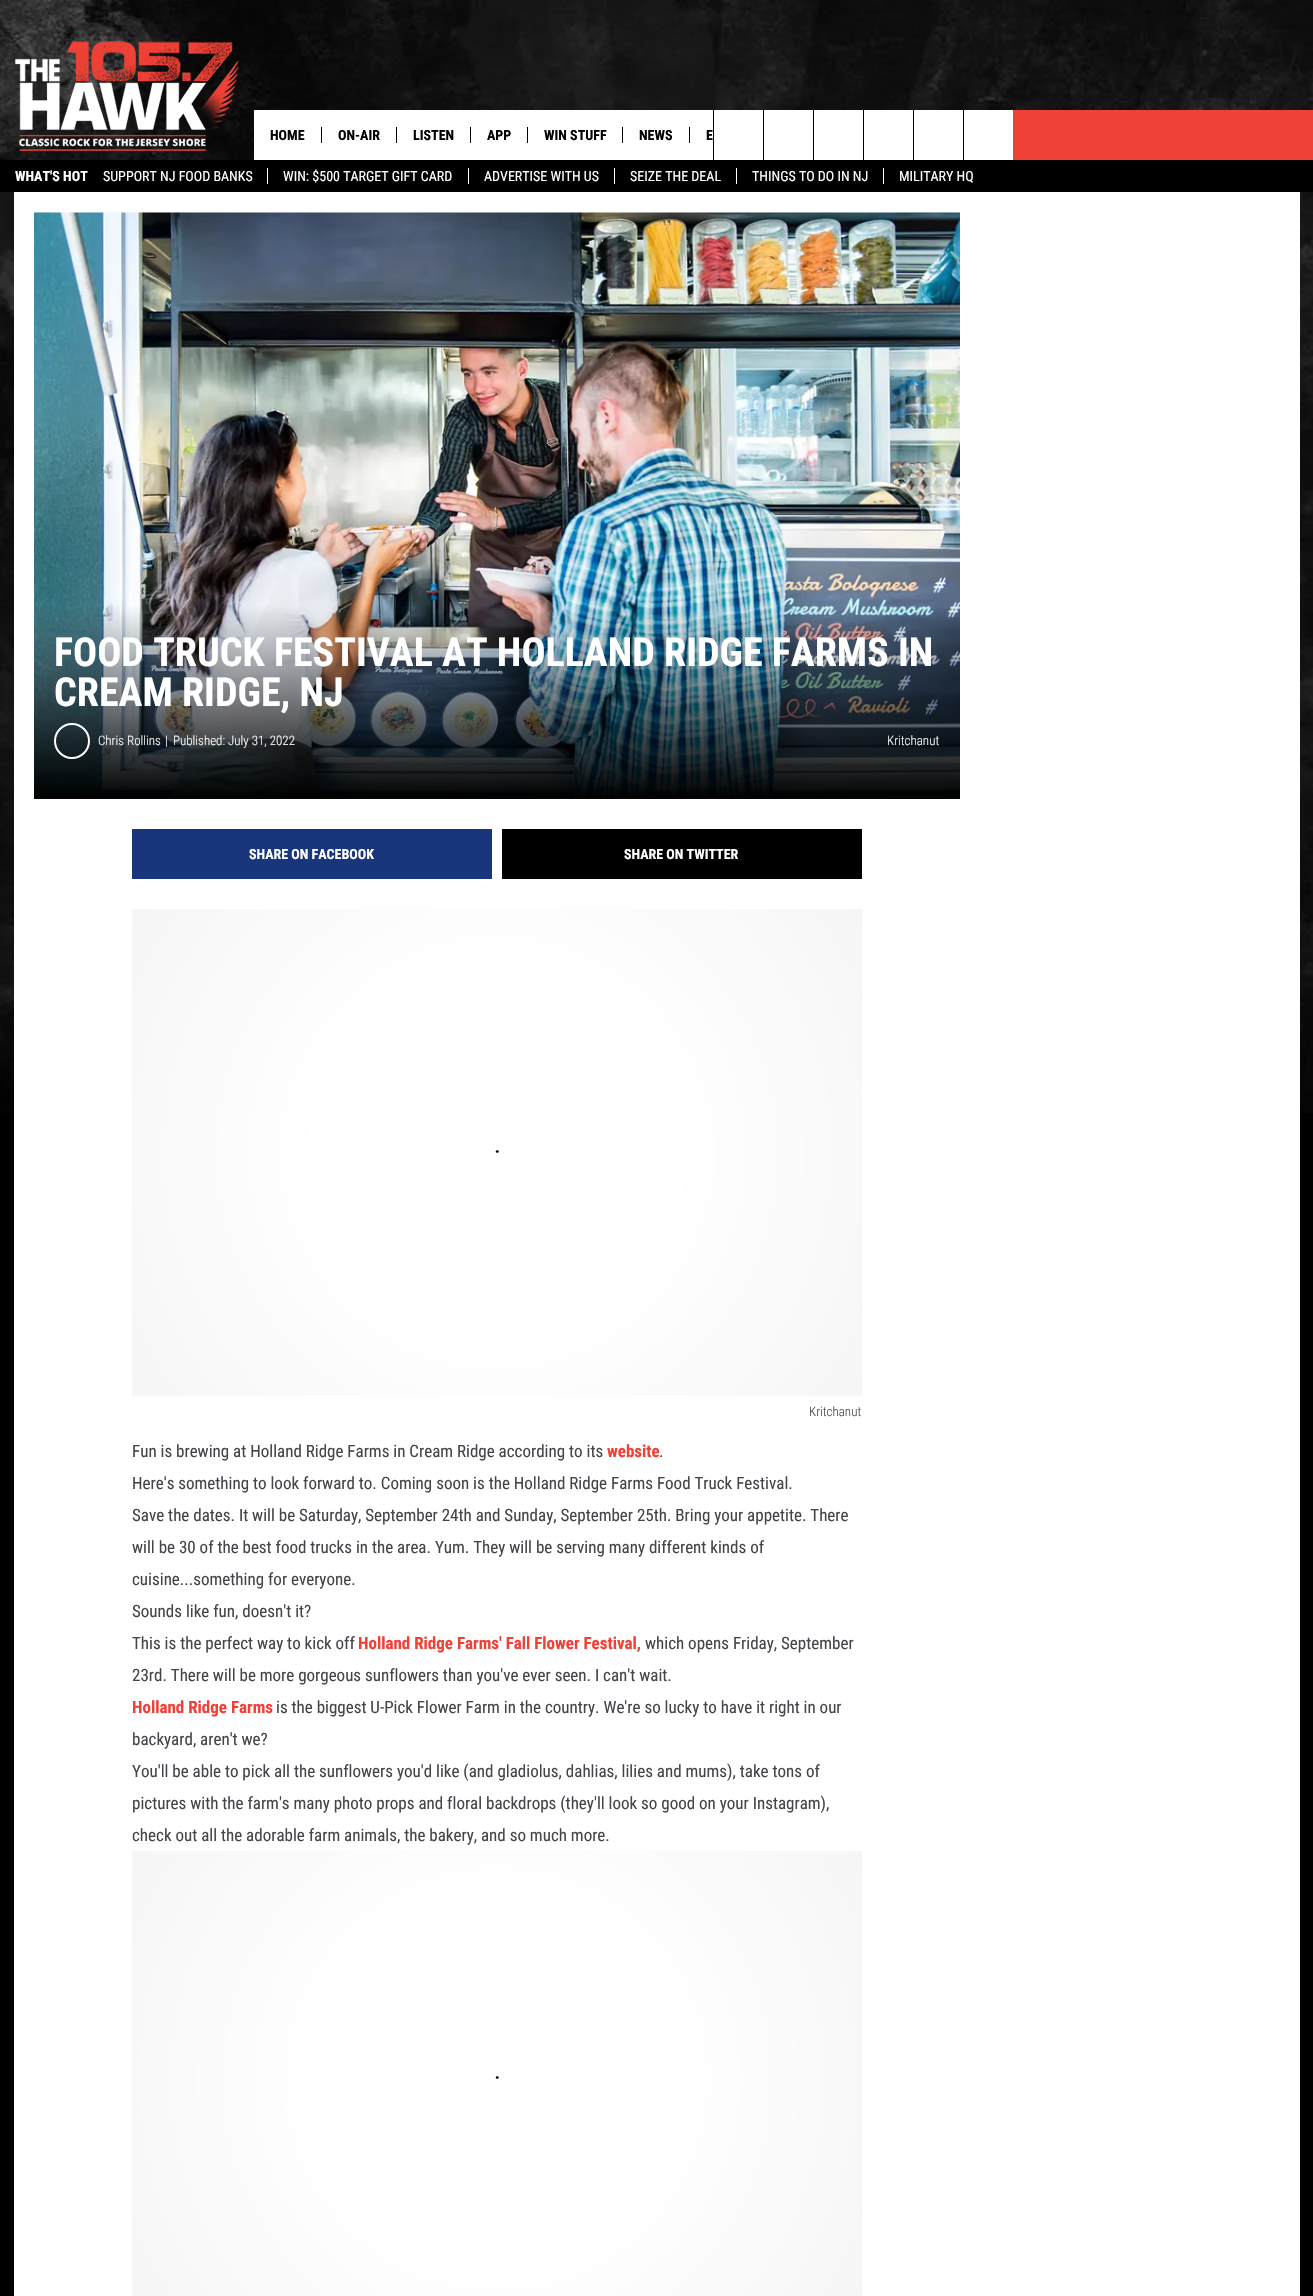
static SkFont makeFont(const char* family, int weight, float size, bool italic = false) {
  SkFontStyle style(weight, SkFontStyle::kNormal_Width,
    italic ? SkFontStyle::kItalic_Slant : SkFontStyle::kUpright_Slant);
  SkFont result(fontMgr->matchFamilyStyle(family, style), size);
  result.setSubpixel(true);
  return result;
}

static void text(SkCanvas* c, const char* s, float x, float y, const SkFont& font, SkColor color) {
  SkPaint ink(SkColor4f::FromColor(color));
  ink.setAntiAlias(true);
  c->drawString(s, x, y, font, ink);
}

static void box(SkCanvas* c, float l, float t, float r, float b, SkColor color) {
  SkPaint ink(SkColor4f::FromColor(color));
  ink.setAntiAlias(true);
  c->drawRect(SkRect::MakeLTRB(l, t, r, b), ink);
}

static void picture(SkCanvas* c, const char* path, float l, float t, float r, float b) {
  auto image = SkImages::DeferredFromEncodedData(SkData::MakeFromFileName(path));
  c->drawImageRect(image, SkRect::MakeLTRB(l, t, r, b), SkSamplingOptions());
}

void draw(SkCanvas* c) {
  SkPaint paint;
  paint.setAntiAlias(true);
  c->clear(0xff000000);
  picture(c, "img_01.png", 0, 192, 1313, 1113);
  picture(c, "img_02.png", 0, 0, 1313, 160);
  picture(c, "img_03.png", 15, 41, 239, 151);
  box(c, 254, 110, 713, 160, 0xffffffff);
  SkFont face1 = makeFont("Roboto Condensed", 700, 14);
  text(c, "HOME", 270, 140, face1, 0xff000000);
  box(c, 321, 127, 322, 143, 0xff000000);
  text(c, "ON-AIR", 338, 140, face1, 0xff000000);
  box(c, 396, 127, 397, 143, 0xff000000);
  text(c, "LISTEN", 413, 140, face1, 0xff000000);
  box(c, 470, 127, 471, 143, 0xff000000);
  text(c, "APP", 487, 140, face1, 0xff000000);
  box(c, 527, 127, 528, 143, 0xff000000);
  text(c, "WIN STUFF", 544, 140, face1, 0xff000000);
  box(c, 622, 127, 623, 143, 0xff000000);
  text(c, "NEWS", 639, 140, face1, 0xff000000);
  box(c, 689, 127, 690, 143, 0xff000000);
  text(c, "E", 706, 140, face1, 0xff000000);
  box(c, 714, 110, 763, 160, 0xffffffff);
  box(c, 713, 110, 714, 160, 0xff000000);
  box(c, 764, 110, 1013, 160, 0xffffffff);
  box(c, 763, 110, 764, 160, 0xff000000);
  box(c, 813, 110, 814, 160, 0xff000000);
  box(c, 863, 110, 864, 160, 0xff000000);
  box(c, 913, 110, 914, 160, 0xff000000);
  box(c, 963, 110, 964, 160, 0xff000000);
  box(c, 1013, 110, 1313, 160, 0xffef4136);
  text(c, "WHAT'S HOT", 15, 181, face1, 0xffffffff);
  SkFont face2 = makeFont("Roboto Condensed", 400, 14);
  text(c, "SUPPORT NJ FOOD BANKS", 103, 181, face2, 0xffffffff);
  text(c, "WIN: $500 TARGET GIFT CARD", 283, 181, face2, 0xffffffff);
  box(c, 267, 168, 268, 184, 0xffffffff);
  text(c, "ADVERTISE WITH US", 484, 181, face2, 0xffffffff);
  box(c, 468, 168, 469, 184, 0xffffffff);
  text(c, "SEIZE THE DEAL", 630, 181, face2, 0xffffffff);
  box(c, 614, 168, 615, 184, 0xffffffff);
  text(c, "THINGS TO DO IN NJ", 752, 181, face2, 0xffffffff);
  box(c, 736, 168, 737, 184, 0xffffffff);
  text(c, "MILITARY HQ", 899, 181, face2, 0xffffffff);
  box(c, 883, 168, 884, 184, 0xffffffff);
  box(c, 14, 192, 1300, 2296, 0xffffffff);
  {
    const SkColor colors[] = {0xffffffff, 0xfff7f6f7};
    const float stops[] = {0.4f, 1};
    paint.setShader(SkGradientShader::MakeRadial({497, 521}, 556, colors, stops, 2, SkTileMode::kClamp));
    paint.setAlpha(255);
  }
  c->drawRect(SkRect::MakeLTRB(34, 212, 960, 213), paint);
  picture(c, "img_04.png", 34, 212, 960, 799);
  SkFont face3 = makeFont("Roboto Condensed", 700, 40);
  text(c, "FOOD TRUCK FESTIVAL AT HOLLAND RIDGE FARMS IN", 54, 666, face3, 0xffffffff);
  text(c, "CREAM RIDGE, NJ", 54, 706, face3, 0xffffffff);
  paint.setStyle(SkPaint::kStroke_Style);
  paint.setStrokeWidth(2);
  paint.setShader(nullptr);
  paint.setColor(0xffffffff);
  c->drawCircle(72, 741, 17, paint);
  SkFont face4 = makeFont("Roboto Condensed", 300, 13);
  text(c, "Chris Rollins", 98, 745, face4, 0xffffffff);
  text(c, "|", 165, 745, face4, 0xffffffff);
  text(c, "Published: July 31, 2022", 173, 745, face4, 0xffffffff);
  text(c, "Kritchanut", 887, 745, face4, 0xffffffff);
  box(c, 132, 829, 492, 879, 0xff19367c);
  text(c, "SHARE ON FACEBOOK", 249, 859, face1, 0xffffffff);
  box(c, 502, 829, 862, 879, 0xff000000);
  text(c, "SHARE ON TWITTER", 624, 859, face1, 0xffffffff);
  paint.setStyle(SkPaint::kFill_Style);
  {
    const SkColor colors[] = {0xffffffff, 0xfff6f6f7};
    const float stops[] = {0.4f, 1};
    paint.setShader(SkGradientShader::MakeRadial({497, 1153}, 439, colors, stops, 2, SkTileMode::kClamp));
    paint.setAlpha(255);
  }
  c->drawRect(SkRect::MakeLTRB(132, 909, 862, 1396), paint);
  paint.setStyle(SkPaint::kStroke_Style);
  paint.setStrokeWidth(2.4f);
  paint.setStrokeCap(SkPaint::kRound_Cap);
  paint.setShader(nullptr);
  paint.setColor(0xff000000);
  c->drawPath(SkPathBuilder().moveTo(497, 1151.5f).lineTo(497.5f, 1151.5f).detach(), paint);
  text(c, "Kritchanut", 809, 1416, face4, 0xff45444a);
  SkFont face5 = makeFont("Roboto Condensed", 400, 17);
  text(c, "Fun is brewing at Holland Ridge Farms in Cream Ridge according to its", 132, 1457, face5, 0xff45444a);
  SkFont face6 = makeFont("Roboto Condensed", 700, 17);
  text(c, "website", 607, 1457, face6, 0xffef4136);
  text(c, ".", 659, 1457, face5, 0xff45444a);
  text(c, "Here's something to look forward to. Coming soon is the Holland Ridge Farms Food Truck Festival.", 132, 1489, face5, 0xff45444a);
  text(c, "Save the dates. It will be Saturday, September 24th and Sunday, September 25th. Bring your appetite. There", 132, 1521, face5, 0xff45444a);
  text(c, "will be 30 of the best food trucks in the area. Yum. They will be serving many different kinds of", 132, 1553, face5, 0xff45444a);
  text(c, "cuisine...something for everyone.", 132, 1585, face5, 0xff45444a);
  text(c, "Sounds like fun, doesn't it?", 132, 1617, face5, 0xff45444a);
  text(c, "This is the perfect way to kick off", 132, 1649, face5, 0xff45444a);
  text(c, "Holland Ridge Farms' Fall Flower Festival,", 358, 1649, face6, 0xffef4136);
  text(c, "which opens Friday, September", 645, 1649, face5, 0xff45444a);
  text(c, "23rd. There will be more gorgeous sunflowers than you've ever seen. I can't wait.", 132, 1681, face5, 0xff45444a);
  text(c, "Holland Ridge Farms", 132, 1713, face6, 0xffef4136);
  text(c, "is the biggest U-Pick Flower Farm in the country. We're so lucky to have it right in our", 276, 1713, face5, 0xff45444a);
  text(c, "backyard, aren't we?", 132, 1745, face5, 0xff45444a);
  text(c, "You'll be able to pick all the sunflowers you'd like (and gladiolus, dahlias, lilies and mums), take tons of", 132, 1777, face5, 0xff45444a);
  text(c, "pictures with the farm's many photo props and floral backdrops (they'll look so good on your Instagram),", 132, 1809, face5, 0xff45444a);
  text(c, "check out all the adorable farm animals, the bakery, and so much more.", 132, 1841, face5, 0xff45444a);
  paint.setStyle(SkPaint::kFill_Style);
  {
    const SkColor colors[] = {0xffffffff, 0xfff6f6f7};
    const float stops[] = {0.4f, 1};
    paint.setShader(SkGradientShader::MakeRadial({497, 2079}, 430, colors, stops, 2, SkTileMode::kClamp));
    paint.setAlpha(255);
  }
  c->drawRect(SkRect::MakeLTRB(132, 1851, 862, 2296), paint);
  paint.setStyle(SkPaint::kStroke_Style);
  paint.setShader(nullptr);
  paint.setColor(0xff000000);
  c->drawPath(SkPathBuilder().moveTo(497, 2077.5f).lineTo(497.5f, 2077.5f).detach(), paint);
}
